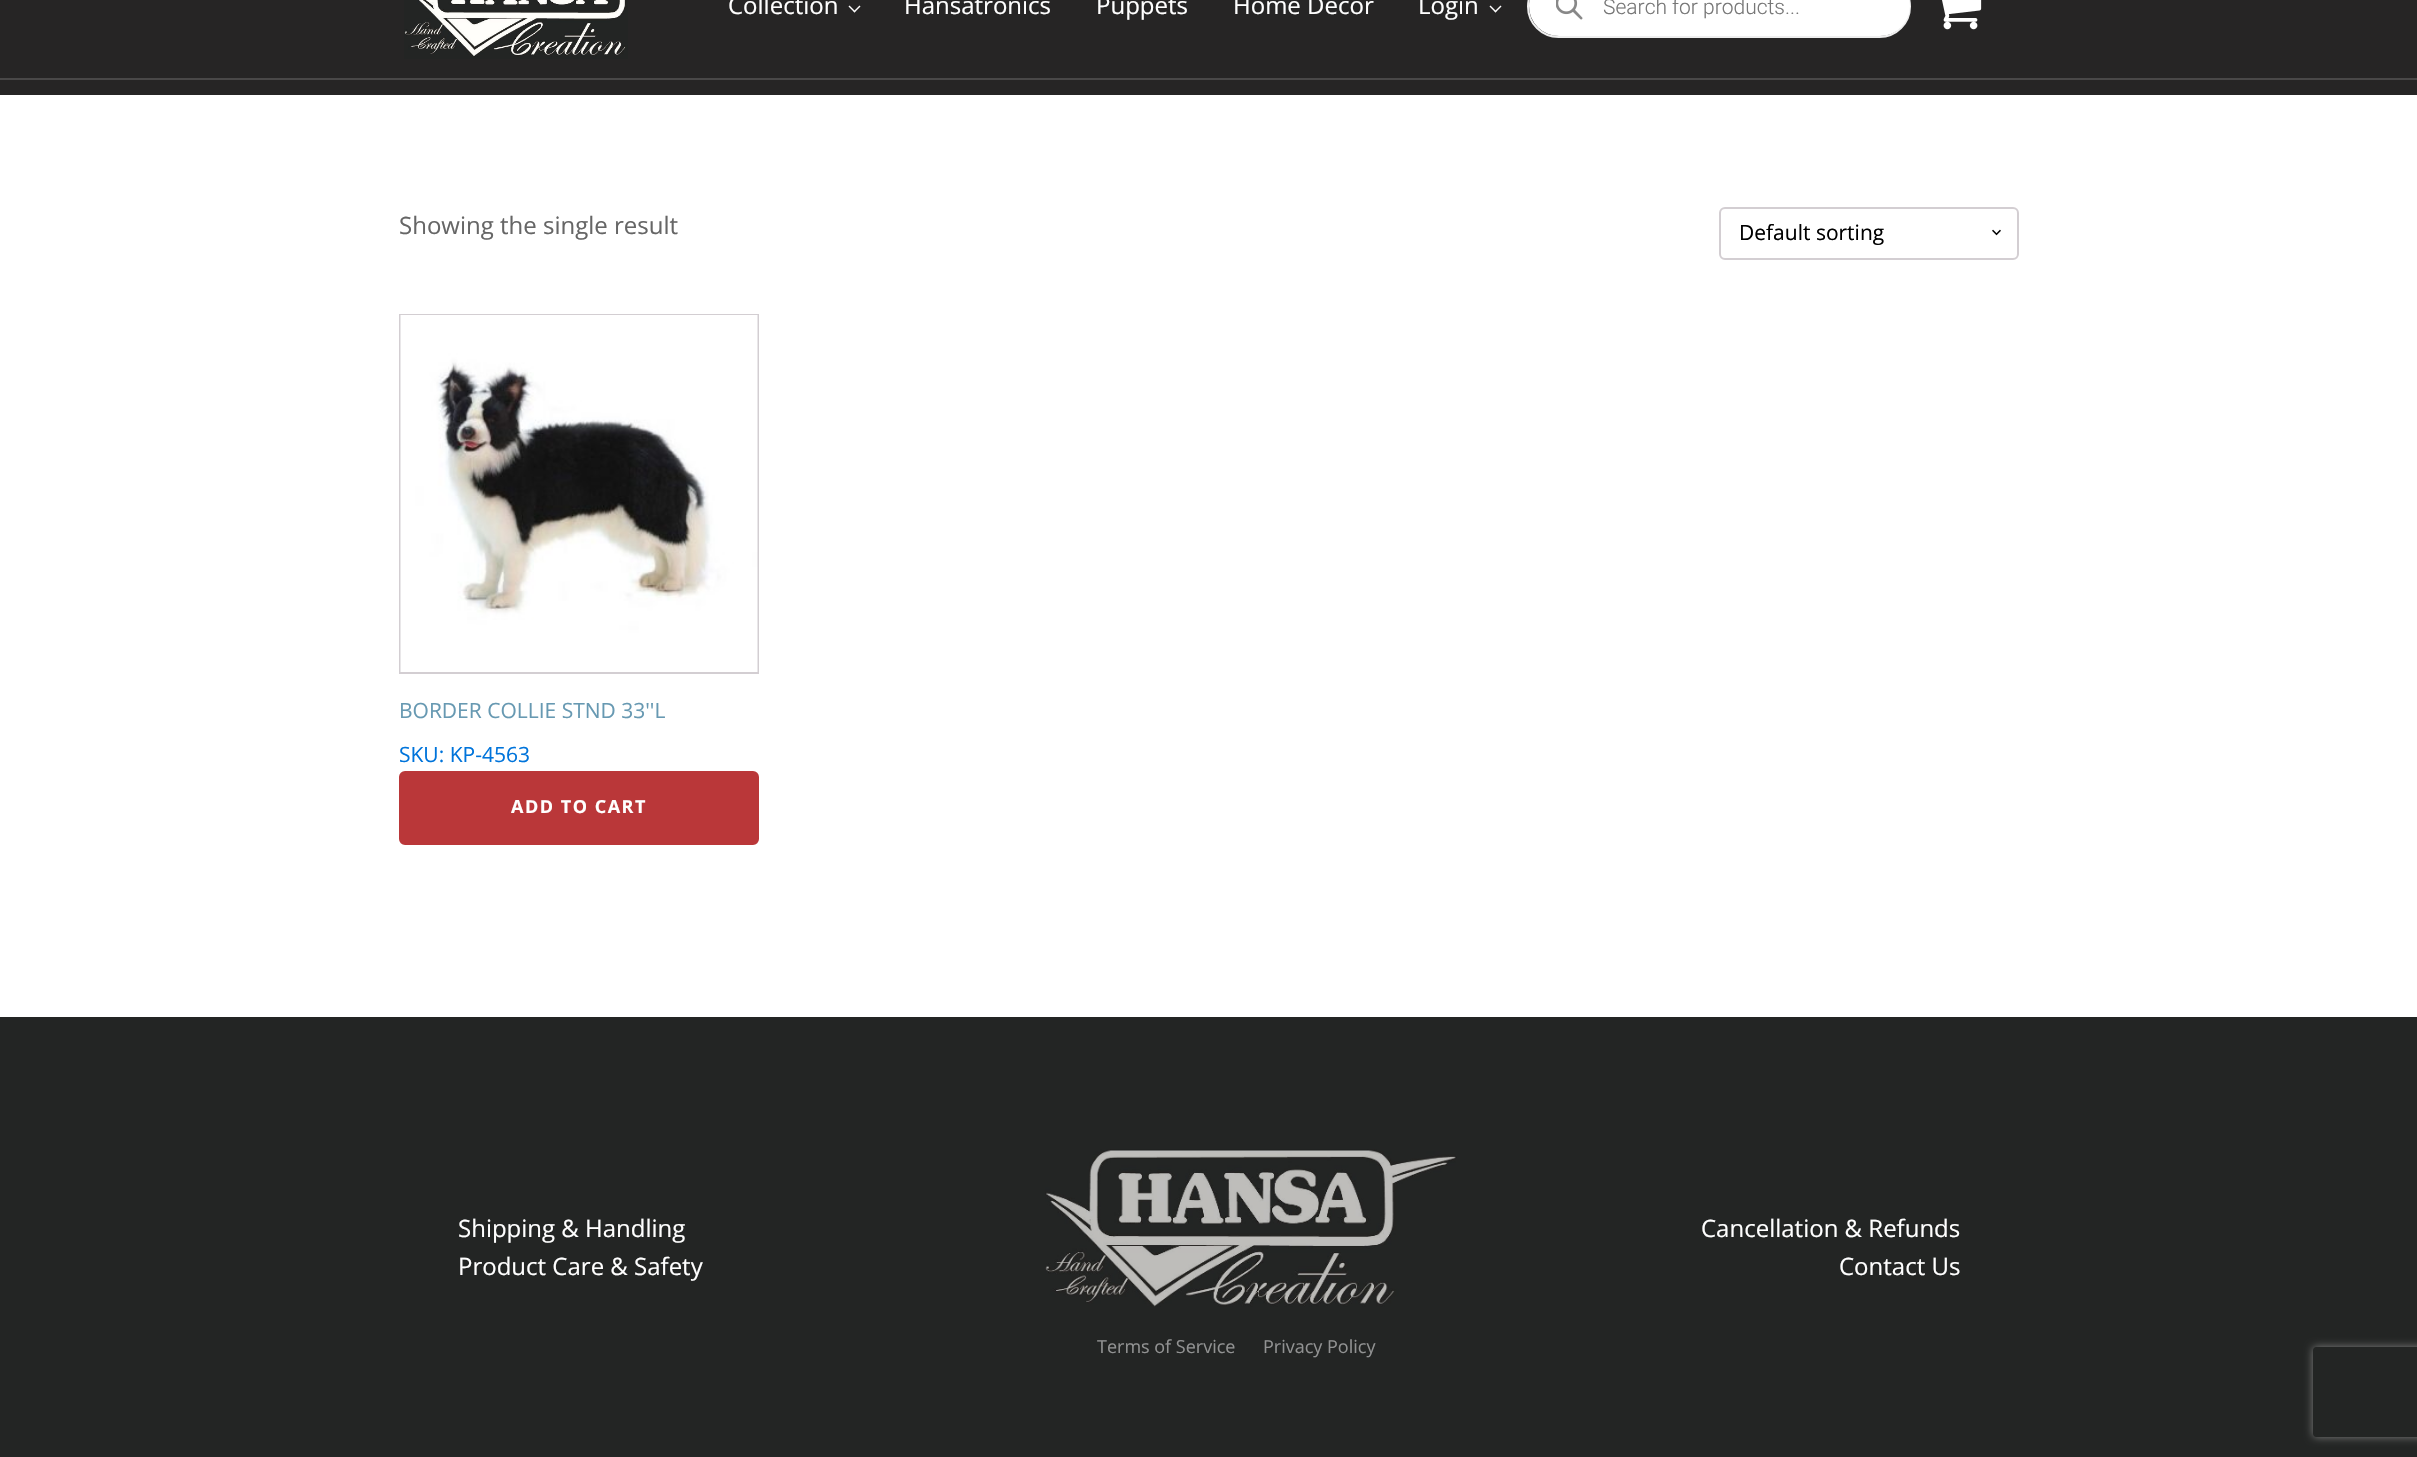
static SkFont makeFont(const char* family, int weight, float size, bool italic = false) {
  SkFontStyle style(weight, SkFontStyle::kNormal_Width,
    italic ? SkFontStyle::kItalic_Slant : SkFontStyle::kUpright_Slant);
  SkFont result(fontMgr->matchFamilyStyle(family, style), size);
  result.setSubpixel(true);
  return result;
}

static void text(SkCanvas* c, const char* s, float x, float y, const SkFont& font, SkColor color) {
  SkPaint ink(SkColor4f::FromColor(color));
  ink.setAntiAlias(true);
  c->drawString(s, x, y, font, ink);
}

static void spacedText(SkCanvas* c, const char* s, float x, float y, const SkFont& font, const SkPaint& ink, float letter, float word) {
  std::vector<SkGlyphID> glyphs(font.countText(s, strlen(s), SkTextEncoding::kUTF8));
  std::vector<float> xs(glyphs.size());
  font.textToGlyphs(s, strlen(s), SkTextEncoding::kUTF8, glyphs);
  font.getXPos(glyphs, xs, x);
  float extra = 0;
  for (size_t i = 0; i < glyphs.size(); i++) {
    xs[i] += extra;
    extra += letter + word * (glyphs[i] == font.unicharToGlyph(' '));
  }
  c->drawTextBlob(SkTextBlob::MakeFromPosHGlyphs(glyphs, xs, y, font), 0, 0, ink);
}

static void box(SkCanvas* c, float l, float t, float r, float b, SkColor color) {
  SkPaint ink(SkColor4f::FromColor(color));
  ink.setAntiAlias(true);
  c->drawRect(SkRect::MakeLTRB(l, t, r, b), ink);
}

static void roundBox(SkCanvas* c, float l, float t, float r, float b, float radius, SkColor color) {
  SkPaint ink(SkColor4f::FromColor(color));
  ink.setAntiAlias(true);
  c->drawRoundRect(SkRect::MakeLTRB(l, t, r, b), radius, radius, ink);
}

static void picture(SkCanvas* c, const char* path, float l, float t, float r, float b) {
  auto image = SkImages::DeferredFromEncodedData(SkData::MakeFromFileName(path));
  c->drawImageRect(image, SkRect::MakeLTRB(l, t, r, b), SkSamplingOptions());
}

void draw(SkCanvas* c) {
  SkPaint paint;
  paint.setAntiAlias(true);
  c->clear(0xffffffff);
  box(c, 0, 0, 2417, 95, 0xff262525);
  picture(c, "img_01.png", 404, 0, 628, 59);
  SkFont face1 = makeFont("Open Sans", 400, 24);
  text(c, "Collection", 728, 14, face1, 0xffffffff);
  paint.setColor(0xffffffff);
  c->drawPath(SkPathBuilder().moveTo(860.5f, 6.5f).lineTo(854.5f, 12.5f).lineTo(853.5f, 11.5f).lineTo(859.5f, 5.5f).close().detach(), paint);
  c->drawPath(SkPathBuilder().moveTo(855.5f, 11.5f).lineTo(854.5f, 12.5f).lineTo(848.5f, 6.5f).lineTo(849.5f, 5.5f).close().detach(), paint);
  text(c, "Hansatronics", 904, 14, face1, 0xffffffff);
  text(c, "Puppets", 1096, 14, face1, 0xffffffff);
  text(c, "Home Decor", 1233, 14, face1, 0xffffffff);
  text(c, "Login", 1418, 14, face1, 0xffffffff);
  c->drawPath(SkPathBuilder().moveTo(1501.5f, 6.5f).lineTo(1495.5f, 12.5f).lineTo(1494.5f, 11.5f).lineTo(1500.5f, 5.5f).close().detach(), paint);
  c->drawPath(SkPathBuilder().moveTo(1496.5f, 11.5f).lineTo(1495.5f, 12.5f).lineTo(1489.5f, 6.5f).lineTo(1490.5f, 5.5f).close().detach(), paint);
  paint.setStyle(SkPaint::kStroke_Style);
  paint.setStrokeWidth(2);
  paint.setColor(0xffeeeeee);
  c->drawRoundRect(SkRect::MakeLTRB(1528, -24, 1910, 37), 30.5f, 30.5f, paint);
  roundBox(c, 1529, -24, 1910, 36, 30, 0xffffffff);
  picture(c, "img_02.png", 1556, 0, 1583, 20);
  SkFont face2 = makeFont("Roboto", 300, 21);
  text(c, "Search for products...", 1603, 14, face2, 0xff777777);
  picture(c, "img_03.png", 1942, 0, 1982, 30);
  box(c, 0, 78, 2417, 80, 0xff494848);
  text(c, "Showing the single result", 399, 234, face1, 0xff666666);
  picture(c, "img_04.png", 1992, 229, 2001, 236);
  paint.setColor(0xffd3ced2);
  c->drawRoundRect(SkRect::MakeLTRB(1720, 208, 2018, 259), 5, 5, paint);
  SkFont face3 = makeFont("Open Sans", 400, 21);
  text(c, "Default sorting", 1739, 240, face3, 0xff000000);
  c->drawRect(SkRect::MakeLTRB(400, 315, 758, 673), paint);
  picture(c, "img_05.png", 400, 315, 758, 672);
  text(c, "BORDER COLLIE STND 33''L", 399, 718, face3, 0xff6799b2);
  text(c, "SKU: KP-4563", 399, 762, face3, 0xff0074db);
  paint.setStyle(SkPaint::kFill_Style);
  paint.setColor(0xffba3739);
  c->drawRoundRect(SkRect::MakeLTRB(400, 772, 758, 844), 5, 5, paint);
  paint.setStyle(SkPaint::kStroke_Style);
  c->drawRoundRect(SkRect::MakeLTRB(400, 772, 758, 844), 5, 5, paint);
  SkFont face4 = makeFont("Open Sans", 700, 18);
  paint.setStyle(SkPaint::kFill_Style);
  paint.setColor(0xffffffff);
  spacedText(c, "ADD TO CART", 511, 813, face4, paint, 1.5f, 0);
  box(c, 0, 1017, 2417, 1457, 0xff232524);
  text(c, "Shipping & Handling", 458, 1237, face1, 0xffffffff);
  text(c, "Product Care & Safety", 458, 1275, face1, 0xffffffff);
  text(c, "Cancellation & Refunds", 1701, 1237, face1, 0xffffffff);
  text(c, "Contact Us", 1839, 1275, face1, 0xffffffff);
  picture(c, "img_06.png", 1045, 1149, 1457, 1307);
  SkFont face5 = makeFont("Open Sans", 400, 18);
  text(c, "Terms of Service", 1097, 1353, face5, 0xff919292);
  text(c, "Privacy Policy", 1263, 1353, face5, 0xff919292);
  c->save();
  c->clipPath(SkPathBuilder(SkPathFillType::kEvenOdd).moveTo(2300, 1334).lineTo(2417, 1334).lineTo(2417, 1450).lineTo(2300, 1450).close().moveTo(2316, 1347).lineTo(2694, 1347).cubicTo(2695.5f, 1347, 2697, 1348.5f, 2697, 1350).lineTo(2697, 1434).cubicTo(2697, 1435.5f, 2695.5f, 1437, 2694, 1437).lineTo(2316, 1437).cubicTo(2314.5f, 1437, 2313, 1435.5f, 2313, 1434).lineTo(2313, 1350).cubicTo(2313, 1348.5f, 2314.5f, 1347, 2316, 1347).close().detach(), true);
  paint.setColor(0xff808080);
  paint.setMaskFilter(SkMaskFilter::MakeBlur(kNormal_SkBlurStyle, 4));
  c->drawRoundRect(SkRect::MakeLTRB(2313, 1347, 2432, 1437), 3, 3, paint);
  paint.setMaskFilter(nullptr);
  c->restore();
}
